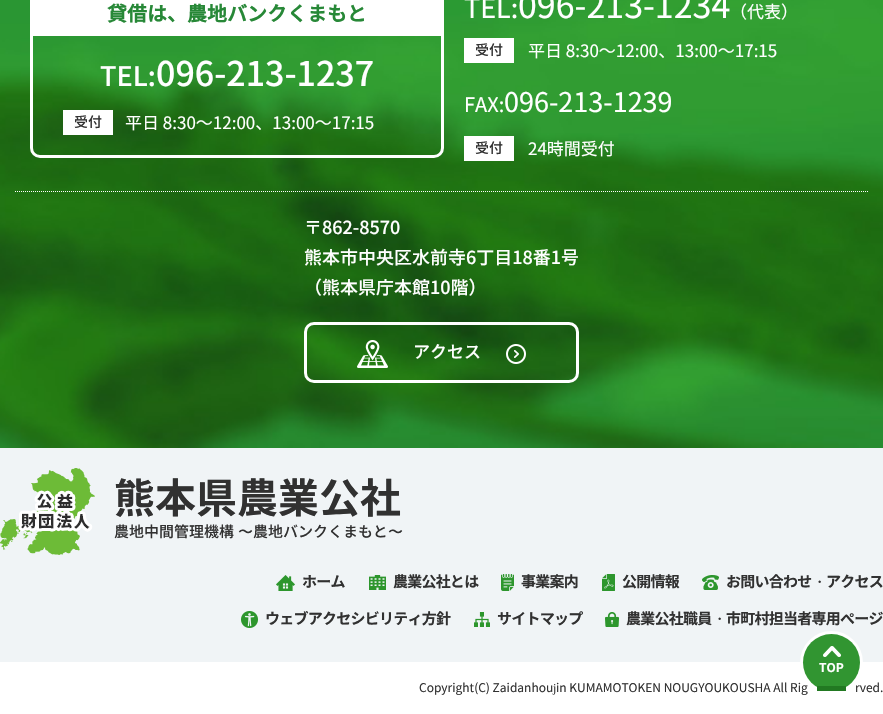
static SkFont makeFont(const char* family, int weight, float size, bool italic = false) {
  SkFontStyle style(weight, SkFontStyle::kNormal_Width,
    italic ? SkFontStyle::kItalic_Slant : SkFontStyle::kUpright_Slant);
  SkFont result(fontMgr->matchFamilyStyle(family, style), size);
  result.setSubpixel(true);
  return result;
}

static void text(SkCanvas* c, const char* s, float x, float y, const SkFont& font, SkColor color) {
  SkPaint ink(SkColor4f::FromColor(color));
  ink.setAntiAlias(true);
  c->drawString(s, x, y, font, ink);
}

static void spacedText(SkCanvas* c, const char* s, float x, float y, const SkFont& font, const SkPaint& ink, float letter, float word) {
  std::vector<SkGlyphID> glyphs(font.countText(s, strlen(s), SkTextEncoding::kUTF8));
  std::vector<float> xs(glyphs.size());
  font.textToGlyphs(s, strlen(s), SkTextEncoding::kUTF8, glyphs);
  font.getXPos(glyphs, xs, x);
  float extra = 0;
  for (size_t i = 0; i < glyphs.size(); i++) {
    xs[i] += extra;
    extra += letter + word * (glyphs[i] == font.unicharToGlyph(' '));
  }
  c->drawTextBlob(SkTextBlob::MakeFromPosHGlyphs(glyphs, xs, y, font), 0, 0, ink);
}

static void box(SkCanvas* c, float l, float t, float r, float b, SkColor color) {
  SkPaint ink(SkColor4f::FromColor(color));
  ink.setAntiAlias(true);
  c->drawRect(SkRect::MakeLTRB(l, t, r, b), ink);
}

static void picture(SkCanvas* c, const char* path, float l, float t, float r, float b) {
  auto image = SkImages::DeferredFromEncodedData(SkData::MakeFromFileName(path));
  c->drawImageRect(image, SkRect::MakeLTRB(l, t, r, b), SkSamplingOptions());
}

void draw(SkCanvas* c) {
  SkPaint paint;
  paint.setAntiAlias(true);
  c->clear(0xfff0f4f6);
  picture(c, "img_01.png", 0, 0, 883, 448);
  paint.setStyle(SkPaint::kStroke_Style);
  paint.setStrokeWidth(1);
  paint.setColor(0xffffffff);
  paint.setPathEffect(SkDashPathEffect::Make({{1, 1}}, 0));
  c->drawPath(SkPathBuilder().moveTo(15, 191.5f).lineTo(868, 191.5f).detach(), paint);
  paint.setPathEffect(nullptr);
  paint.setStrokeWidth(3);
  c->drawRoundRect(SkRect::MakeLTRB(31.5f, -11.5f, 442.5f, 156.5f), 8.5f, 8.5f, paint);
  box(c, 33, 0, 441, 36, 0xffffffff);
  SkFont face1 = makeFont("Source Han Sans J", 700, 20);
  text(c, "貸借は、農地バンクくまもと", 107, 21, face1, 0xff278837);
  SkFont face2 = makeFont("Source Han Sans J", 500, 27);
  text(c, "TEL:", 100, 86, face2, 0xffffffff);
  SkFont face3 = makeFont("Source Han Sans J", 500, 34);
  text(c, "096-213-1237", 156, 86, face3, 0xffffffff);
  box(c, 63, 110, 113, 135, 0xffffffff);
  SkFont face4 = makeFont("Source Han Sans J", 500, 14);
  text(c, "受付", 74, 127, face4, 0xff313131);
  SkFont face5 = makeFont("Source Han Sans J", 400, 17);
  text(c, "平日 8:30～12:00、13:00～17:15", 125, 129, face5, 0xffffffff);
  SkFont face6 = makeFont("Source Han Sans J", 400, 27);
  text(c, "TEL:", 464, 18, face6, 0xffffffff);
  SkFont face7 = makeFont("Source Han Sans J", 400, 34);
  text(c, "096-213-1234", 518, 18, face7, 0xffffffff);
  text(c, "（代表）", 730, 18, face5, 0xffffffff);
  box(c, 464, 38, 514, 63, 0xffffffff);
  text(c, "受付", 475, 55, face4, 0xff313131);
  text(c, "平日 8:30～12:00、13:00～17:15", 528, 57, face5, 0xffffffff);
  SkFont face8 = makeFont("Source Han Sans J", 400, 20);
  text(c, "FAX:", 464, 112, face8, 0xffffffff);
  text(c, "096-213-1239", 504, 112, face6, 0xffffffff);
  box(c, 464, 136, 514, 161, 0xffffffff);
  text(c, "受付", 475, 153, face4, 0xff313131);
  text(c, "24時間受付", 528, 155, face5, 0xffffffff);
  SkFont face9 = makeFont("Source Han Sans J", 500, 18);
  text(c, "〒862-8570", 304, 234, face9, 0xffffffff);
  text(c, "熊本市中央区水前寺6丁目18番1号", 304, 264, face9, 0xffffffff);
  text(c, "（熊本県庁本館10階）", 304, 294, face9, 0xffffffff);
  c->drawRoundRect(SkRect::MakeLTRB(305.5f, 323.5f, 577.5f, 381.5f), 8.5f, 8.5f, paint);
  picture(c, "img_02.png", 357, 340, 388, 368);
  SkFont face10 = makeFont("Source Han Sans J", 500, 17);
  text(c, "アクセス", 413, 358, face10, 0xffffffff);
  picture(c, "img_03.png", 506, 344, 526, 364);
  picture(c, "img_04.png", 0, 468, 95, 555);
  SkFont face11 = makeFont("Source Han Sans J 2", 700, 41);
  text(c, "熊本県農業公社", 114, 513, face11, 0xff313131);
  SkFont face12 = makeFont("Source Han Sans J", 500, 15);
  text(c, "農地中間管理機構", 114, 537, face12, 0xff313131);
  SkFont face13 = makeFont("WenQuanYi Zen Hei", 500, 15);
  text(c, "〜", 238, 537, face13, 0xff313131);
  text(c, "農地バンクくまもと", 253, 537, face12, 0xff313131);
  text(c, "〜", 388, 537, face13, 0xff313131);
  picture(c, "img_05.png", 276, 575, 295, 591);
  SkFont face14 = makeFont("Source Han Sans J 2", 700, 15);
  paint.setStyle(SkPaint::kFill_Style);
  paint.setColor(0xff313131);
  spacedText(c, "ホーム", 302, 587, face14, paint, -0.75f, 0);
  picture(c, "img_06.png", 369, 575, 386, 590);
  spacedText(c, "農業公社とは", 393, 587, face14, paint, -0.75f, 0);
  picture(c, "img_07.png", 501, 574, 514, 591);
  spacedText(c, "事業案内", 521, 587, face14, paint, -0.75f, 0);
  picture(c, "img_08.png", 602, 574, 615, 591);
  spacedText(c, "公開情報", 622, 587, face14, paint, -0.75f, 0);
  picture(c, "img_09.png", 702, 575, 719, 590);
  spacedText(c, "お問い合わせ", 726, 587, face14, paint, -0.75f, 0);
  spacedText(c, "・", 812, 587, face13, paint, -0.75f, 0);
  spacedText(c, "アクセス", 826, 587, face14, paint, -0.75f, 0);
  picture(c, "img_10.png", 241, 611, 258, 628);
  spacedText(c, "ウェブアクセシビリティ方針", 265, 624, face14, paint, -0.75f, 0);
  picture(c, "img_11.png", 474, 612, 490, 627);
  spacedText(c, "サイトマップ", 497, 624, face14, paint, -0.75f, 0);
  picture(c, "img_12.png", 605, 612, 619, 627);
  spacedText(c, "農業公社職員", 626, 624, face14, paint, -0.75f, 0);
  spacedText(c, "・", 712, 624, face13, paint, -0.75f, 0);
  spacedText(c, "市町村担当者専用ページ", 726, 624, face14, paint, -0.75f, 0);
  box(c, 0, 662, 883, 714, 0xffffffff);
  SkFont face15 = makeFont("Source Han Sans J", 400, 12);
  text(c, "in KUMAMOTOKEN NOUGYOUKOUSHA All Rig", 556, 692, face15, 0xff313131);
  text(c, "rved.", 855, 692, face15, 0xff313131);
  paint.setStyle(SkPaint::kStroke_Style);
  paint.setColor(0xffffffff);
  c->drawCircle(831.5f, 662.5f, 30, paint);
  paint.setStyle(SkPaint::kFill_Style);
  paint.setColor(0xff319531);
  c->drawCircle(831.5f, 662.5f, 28.5f, paint);
  box(c, 817, 686, 846, 691, 0xff227922);
  picture(c, "img_13.png", 823, 646, 841, 657);
  SkFont face16 = makeFont("Source Han Sans J 2", 700, 12);
  text(c, "TOP", 819, 672, face16, 0xffffffff);
  text(c, "Copyright(C) Zaidanhou", 419, 692, face15, 0xff313131);
  SkFont face17 = makeFont("Liberation Serif", 400, 12);
  text(c, "j", 553, 692, face17, 0xff313131);
}
